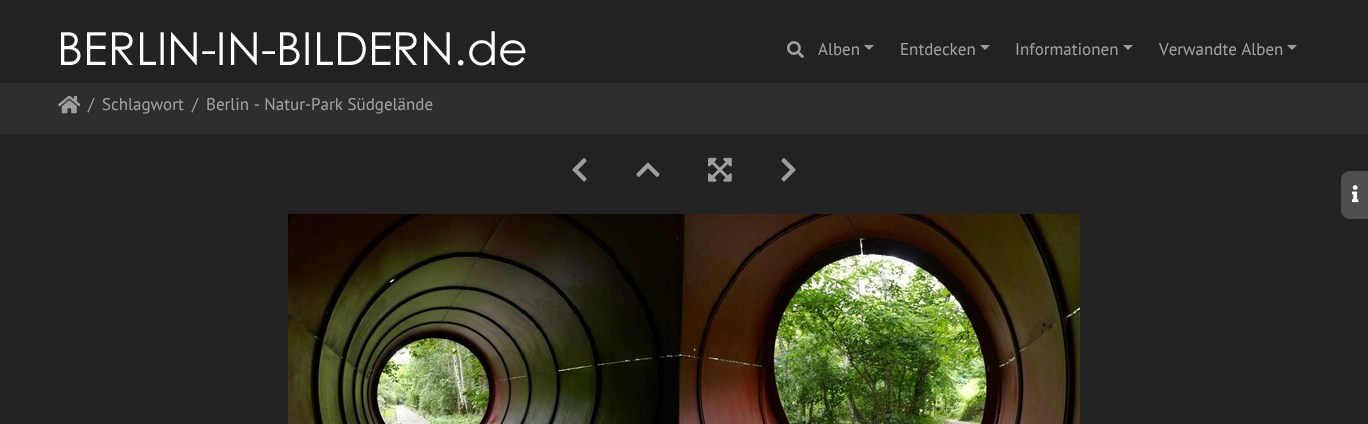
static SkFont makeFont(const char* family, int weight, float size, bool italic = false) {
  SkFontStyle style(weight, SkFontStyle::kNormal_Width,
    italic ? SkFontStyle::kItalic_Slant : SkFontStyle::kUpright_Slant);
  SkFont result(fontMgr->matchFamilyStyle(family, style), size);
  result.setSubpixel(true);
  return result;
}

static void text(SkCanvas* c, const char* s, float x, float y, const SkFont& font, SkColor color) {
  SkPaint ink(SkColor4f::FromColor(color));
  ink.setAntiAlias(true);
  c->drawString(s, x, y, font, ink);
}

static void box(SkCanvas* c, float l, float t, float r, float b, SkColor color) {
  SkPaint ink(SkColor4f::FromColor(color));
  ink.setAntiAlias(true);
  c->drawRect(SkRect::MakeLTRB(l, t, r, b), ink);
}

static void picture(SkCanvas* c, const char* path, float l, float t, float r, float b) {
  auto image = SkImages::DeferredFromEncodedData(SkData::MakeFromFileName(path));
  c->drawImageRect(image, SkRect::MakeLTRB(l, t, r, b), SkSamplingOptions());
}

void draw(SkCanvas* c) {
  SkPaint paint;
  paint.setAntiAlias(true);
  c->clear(0xff222222);
  picture(c, "img_01.png", 61, 31, 526, 66);
  picture(c, "img_02.png", 787, 41, 804, 59);
  SkFont face1 = makeFont("PT Sans", 400, 17);
  text(c, "Alben", 818, 55, face1, 0xff9e9e9e);
  paint.setColor(0xff9e9e9e);
  c->drawPath(SkPathBuilder().moveTo(864, 45).lineTo(874, 45).lineTo(869, 50).close().detach(), paint);
  text(c, "Entdecken", 900, 55, face1, 0xff9e9e9e);
  c->drawPath(SkPathBuilder().moveTo(980, 45).lineTo(990, 45).lineTo(985, 50).close().detach(), paint);
  text(c, "Informationen", 1015, 55, face1, 0xff9e9e9e);
  c->drawPath(SkPathBuilder().moveTo(1123, 45).lineTo(1133, 45).lineTo(1128, 50).close().detach(), paint);
  text(c, "Verwandte Alben", 1159, 55, face1, 0xff9e9e9e);
  c->drawPath(SkPathBuilder().moveTo(1287, 45).lineTo(1297, 45).lineTo(1292, 50).close().detach(), paint);
  box(c, 0, 83, 1368, 134, 0xff2e2e2e);
  picture(c, "img_03.png", 58, 96, 80, 114);
  text(c, "/", 88, 110, face1, 0xff9e9e9e);
  text(c, "Schlagwort", 102, 110, face1, 0xff9e9e9e);
  text(c, "/", 192, 110, face1, 0xff9e9e9e);
  text(c, "Berlin - Natur-Park Südgelände", 206, 110, face1, 0xff9e9e9e);
  picture(c, "img_04.png", 572, 158, 587, 182);
  picture(c, "img_05.png", 636, 162, 660, 177);
  picture(c, "img_06.png", 708, 157, 732, 182);
  picture(c, "img_07.png", 781, 158, 796, 182);
  paint.setColor(0xff4f4f4f);
  c->drawPath(SkPathBuilder().moveTo(1351, 171).lineTo(1368, 171).lineTo(1368, 219).lineTo(1351, 219).cubicTo(1345.5f, 219, 1341, 214.5f, 1341, 209).lineTo(1341, 181).cubicTo(1341, 175.5f, 1345.5f, 171, 1351, 171).close().detach(), paint);
  c->drawPath(SkPathBuilder(SkPathFillType::kEvenOdd).moveTo(1351, 171).lineTo(1368, 171).lineTo(1368, 219).lineTo(1351, 219).cubicTo(1345, 219, 1341, 215, 1341, 209).lineTo(1341, 181).cubicTo(1341, 175, 1345, 171, 1351, 171).close().moveTo(1351, 172).lineTo(1368, 172).lineTo(1368, 218).lineTo(1351, 218).cubicTo(1346, 218, 1342, 214, 1342, 209).lineTo(1342, 181).cubicTo(1342, 176, 1346, 172, 1351, 172).close().detach(), paint);
  picture(c, "img_08.png", 1352, 185, 1359, 203);
  picture(c, "img_09.png", 288, 214, 1080, 424);
}
